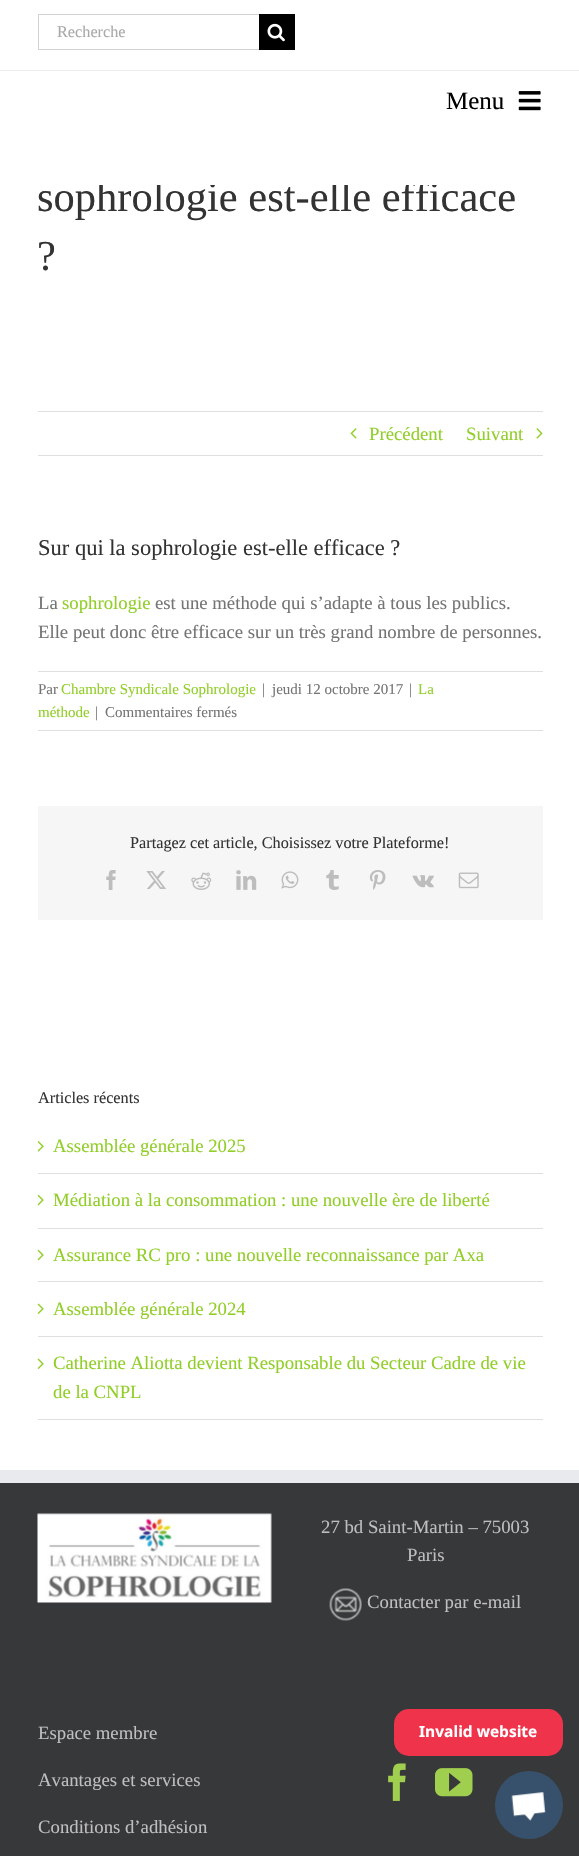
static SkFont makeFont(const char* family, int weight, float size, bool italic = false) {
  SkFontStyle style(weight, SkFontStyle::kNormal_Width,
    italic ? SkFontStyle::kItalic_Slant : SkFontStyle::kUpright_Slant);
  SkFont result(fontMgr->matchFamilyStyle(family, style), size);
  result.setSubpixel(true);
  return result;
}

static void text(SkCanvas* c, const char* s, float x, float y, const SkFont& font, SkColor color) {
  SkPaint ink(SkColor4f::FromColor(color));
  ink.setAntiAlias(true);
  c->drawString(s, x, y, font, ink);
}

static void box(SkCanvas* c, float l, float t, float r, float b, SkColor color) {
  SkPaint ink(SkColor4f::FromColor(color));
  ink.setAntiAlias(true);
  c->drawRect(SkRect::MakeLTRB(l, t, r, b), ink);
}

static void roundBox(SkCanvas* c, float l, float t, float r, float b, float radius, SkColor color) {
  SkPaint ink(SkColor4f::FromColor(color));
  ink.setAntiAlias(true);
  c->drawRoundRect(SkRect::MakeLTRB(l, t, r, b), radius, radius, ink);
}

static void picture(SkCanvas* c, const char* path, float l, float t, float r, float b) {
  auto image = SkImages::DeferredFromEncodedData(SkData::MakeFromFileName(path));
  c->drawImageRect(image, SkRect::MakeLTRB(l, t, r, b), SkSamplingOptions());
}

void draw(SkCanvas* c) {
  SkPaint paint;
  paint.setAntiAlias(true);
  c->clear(0xffffffff);
  box(c, 38, 14, 259, 15, 0xffd2d2d2);
  box(c, 38, 49, 259, 50, 0xffd2d2d2);
  box(c, 38, 14, 39, 50, 0xffd2d2d2);
  SkFont face1 = makeFont("Liberation Serif", 400, 16.25f);
  text(c, "Recherche", 57, 37, face1, 0xffaaa9a9);
  box(c, 259, 14, 295, 50, 0xff000000);
  picture(c, "img_01.png", 267, 23, 285, 42);
  SkFont face2 = makeFont("Liberation Serif", 400, 42.5f);
  text(c, "sophrologie est-elle efficace", 37, 211, face2, 0xff333333);
  box(c, 96, 181, 438, 185, 0xffffffff);
  box(c, 0, 70, 579, 71, 0xffededed);
  SkFont face3 = makeFont("Liberation Serif", 400, 25);
  text(c, "Menu", 446, 109, face3, 0xff000000);
  picture(c, "img_02.png", 518, 91, 541, 111);
  text(c, "?", 37, 270, face2, 0xff333333);
  box(c, 38, 411, 543, 412, 0xffe0dede);
  box(c, 38, 455, 543, 456, 0xffe0dede);
  picture(c, "img_03.png", 350, 428, 357, 439);
  SkFont face4 = makeFont("Liberation Serif", 400, 18.75f);
  text(c, "Précédent", 369, 440, face4, 0xff91ce27);
  text(c, "Suivant", 466, 440, face4, 0xff91ce27);
  picture(c, "img_04.png", 536, 428, 543, 439);
  SkFont face5 = makeFont("Liberation Serif", 400, 22.5f);
  text(c, "Sur qui la sophrologie est-elle efficace ?", 38, 555, face5, 0xff333333);
  text(c, "La", 38, 609, face4, 0xff747474);
  text(c, "sophrologie", 62, 609, face4, 0xff91ce27);
  text(c, "est une méthode qui s’adapte à tous les publics.", 155, 609, face4, 0xff747474);
  text(c, "Elle peut donc être efficace sur un très grand nombre de personnes.", 38, 638, face4, 0xff747474);
  box(c, 38, 671, 543, 672, 0xffe0dede);
  box(c, 38, 730, 543, 731, 0xffe0dede);
  SkFont face6 = makeFont("Liberation Serif", 400, 15);
  text(c, "Par", 38, 694, face6, 0xff747474);
  text(c, "Chambre Syndicale Sophrologie", 61, 694, face6, 0xff91ce27);
  text(c, "|", 262, 694, face6, 0xff747474);
  text(c, "jeudi 12 octobre 2017", 272, 694, face6, 0xff747474);
  text(c, "|", 409, 694, face6, 0xff747474);
  text(c, "La", 418, 694, face6, 0xff91ce27);
  text(c, "méthode", 38, 717, face6, 0xff91ce27);
  text(c, "|", 95, 717, face6, 0xff747474);
  text(c, "Commentaires fermés", 105, 717, face6, 0xff747474);
  box(c, 38, 806, 543, 920, 0xfff6f6f6);
  text(c, "Partagez cet article, Choisissez votre Plateforme!", 130, 848, face1, 0xff333333);
  picture(c, "img_05.png", 106, 870, 116, 890);
  picture(c, "img_06.png", 146, 871, 166, 889);
  picture(c, "img_07.png", 191, 872, 212, 890);
  picture(c, "img_08.png", 236, 870, 257, 890);
  picture(c, "img_09.png", 281, 871, 299, 889);
  picture(c, "img_10.png", 326, 870, 339, 890);
  picture(c, "img_11.png", 369, 870, 386, 890);
  picture(c, "img_12.png", 412, 875, 434, 888);
  picture(c, "img_13.png", 458, 872, 479, 889);
  text(c, "Articles récents", 38, 1103, face1, 0xff333333);
  box(c, 38, 1173, 543, 1174, 0xffe0dede);
  picture(c, "img_14.png", 37, 1141, 44, 1152);
  text(c, "Assemblée générale 2025", 53, 1152, face4, 0xff91ce27);
  box(c, 38, 1228, 543, 1229, 0xffe0dede);
  picture(c, "img_15.png", 37, 1194, 44, 1206);
  text(c, "Médiation à la consommation : une nouvelle ère de liberté", 53, 1206, face4, 0xff91ce27);
  box(c, 38, 1281, 543, 1282, 0xffe0dede);
  picture(c, "img_15.png", 37, 1249, 44, 1261);
  text(c, "Assurance RC pro : une nouvelle reconnaissance par Axa", 53, 1261, face4, 0xff91ce27);
  box(c, 38, 1336, 543, 1337, 0xffe0dede);
  picture(c, "img_16.png", 37, 1303, 44, 1314);
  text(c, "Assemblée générale 2024", 53, 1315, face4, 0xff91ce27);
  box(c, 38, 1419, 543, 1420, 0xffe0dede);
  picture(c, "img_16.png", 37, 1358, 44, 1369);
  text(c, "Catherine Aliotta devient Responsable du Secteur Cadre de vie", 53, 1369, face4, 0xff91ce27);
  text(c, "de la CNPL", 53, 1398, face4, 0xff91ce27);
  box(c, 0, 1483, 579, 1856, 0xff363839);
  box(c, 0, 1470, 579, 1483, 0xffe9eaee);
  picture(c, "img_17.png", 37, 1513, 272, 1603);
  text(c, "27 bd Saint-Martin – 75003", 321, 1533, face4, 0xffbfbfbf);
  text(c, "Paris", 407, 1561, face4, 0xffbfbfbf);
  picture(c, "img_18.png", 329, 1588, 362, 1621);
  text(c, "Contacter par e-mail", 367, 1608, face4, 0xffbfbfbf);
  text(c, "Espace membre", 38, 1739, face4, 0xffbfbfbf);
  text(c, "Avantages et services", 38, 1786, face4, 0xffbfbfbf);
  text(c, "Conditions d’adhésion", 38, 1833, face4, 0xffbfbfbf);
  picture(c, "img_19.png", 388, 1763, 406, 1801);
  picture(c, "img_20.png", 435, 1768, 473, 1797);
  roundBox(c, 394, 1709, 563, 1756, 15, 0xffee334b);
  SkFont face7 = makeFont("Noto Sans", 700, 15.5f);
  text(c, "Invalid website", 419, 1737, face7, 0xffffffff);
  paint.setColor(0xff37516c);
  c->drawCircle(529, 1805, 34, paint);
  picture(c, "img_21.png", 511, 1792, 546, 1821);
}
